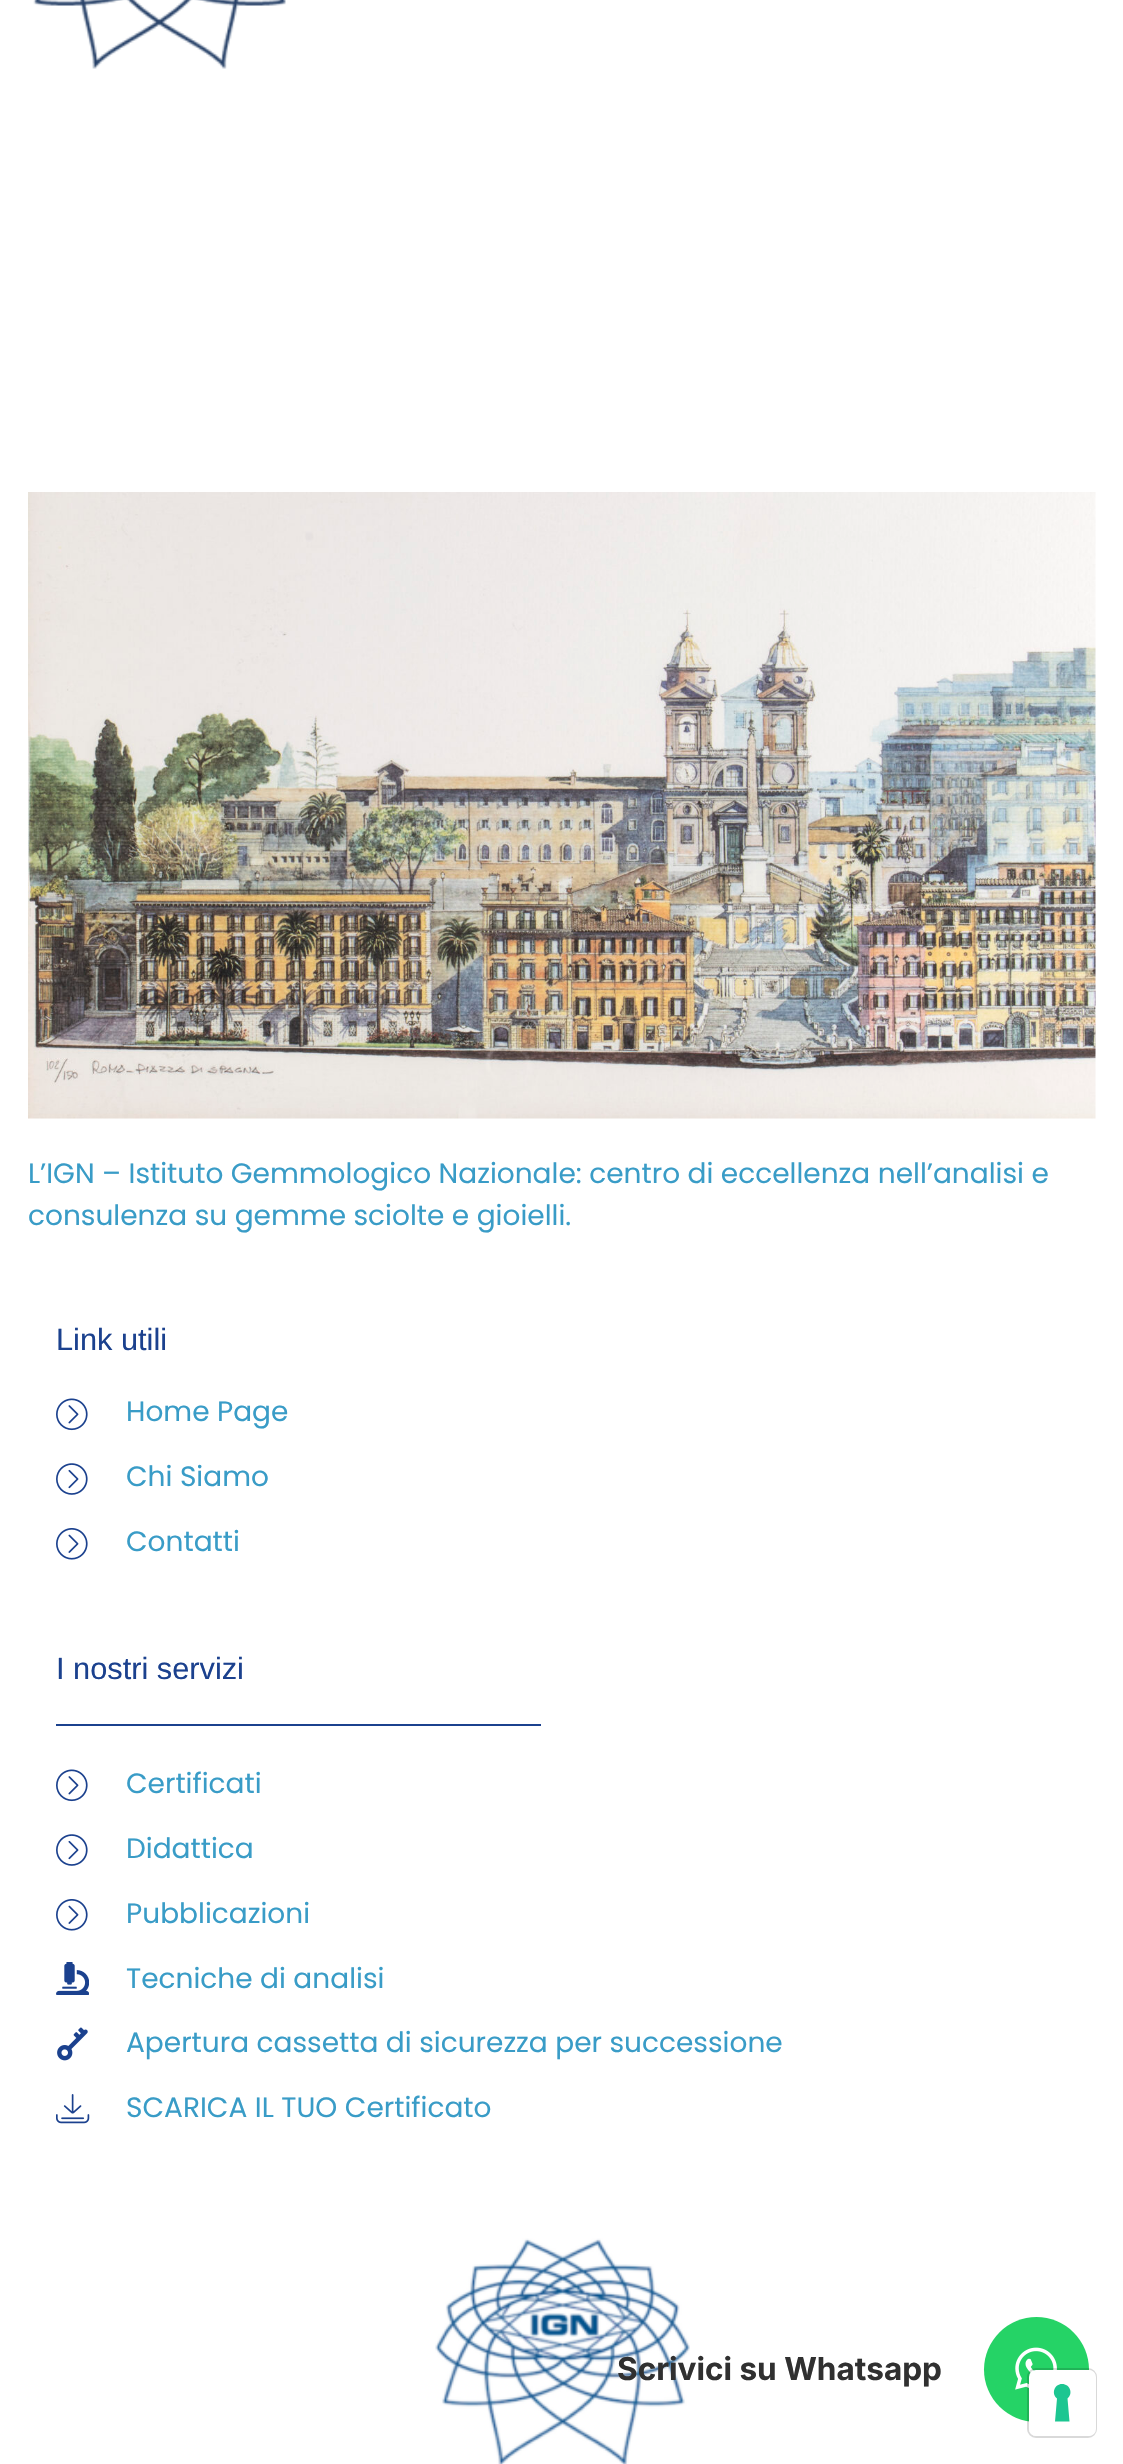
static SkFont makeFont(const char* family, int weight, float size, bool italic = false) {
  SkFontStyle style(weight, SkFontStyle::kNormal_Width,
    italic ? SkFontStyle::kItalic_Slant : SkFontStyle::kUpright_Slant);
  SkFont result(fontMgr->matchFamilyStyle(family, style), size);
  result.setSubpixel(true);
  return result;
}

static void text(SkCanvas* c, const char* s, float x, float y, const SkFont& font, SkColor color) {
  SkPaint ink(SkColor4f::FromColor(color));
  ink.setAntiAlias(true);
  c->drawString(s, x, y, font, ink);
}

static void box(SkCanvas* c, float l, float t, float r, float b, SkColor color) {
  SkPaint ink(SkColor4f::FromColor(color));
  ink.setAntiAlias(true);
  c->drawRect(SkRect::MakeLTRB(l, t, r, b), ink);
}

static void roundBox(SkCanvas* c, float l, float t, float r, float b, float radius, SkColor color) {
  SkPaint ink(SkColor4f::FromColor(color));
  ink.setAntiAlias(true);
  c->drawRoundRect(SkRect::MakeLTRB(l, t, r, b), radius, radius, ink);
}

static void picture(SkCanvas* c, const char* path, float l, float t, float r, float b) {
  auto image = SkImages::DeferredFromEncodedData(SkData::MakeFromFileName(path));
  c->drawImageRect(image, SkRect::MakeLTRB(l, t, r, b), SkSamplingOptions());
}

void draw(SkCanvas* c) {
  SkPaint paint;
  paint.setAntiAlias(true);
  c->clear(0xffffffff);
  picture(c, "img_01.png", 33, 0, 286, 69);
  picture(c, "img_02.png", 28, 492, 1096, 1119);
  SkFont face1 = makeFont("Poppins", 400, 28);
  text(c, "L’IGN – Istituto Gemmologico Nazionale: centro di eccellenza nell’analisi e", 28, 1183, face1, 0xff399cc7);
  text(c, "consulenza su gemme sciolte e gioielli.", 28, 1225, face1, 0xff399cc7);
  SkFont face2 = makeFont("Liberation Sans", 400, 30.75f);
  text(c, "Link utili", 56, 1350, face2, 0xff1b418e);
  picture(c, "img_03.png", 56, 1398, 88, 1431);
  text(c, "Home Page", 126, 1421, face1, 0xff399cc7);
  picture(c, "img_04.png", 56, 1463, 88, 1495);
  text(c, "Chi Siamo", 126, 1486, face1, 0xff399cc7);
  picture(c, "img_05.png", 56, 1528, 88, 1560);
  text(c, "Contatti", 126, 1551, face1, 0xff399cc7);
  text(c, "I nostri servizi", 56, 1679, face2, 0xff1b418e);
  box(c, 56, 1724, 541, 1726, 0xff1b418e);
  picture(c, "img_03.png", 56, 1769, 88, 1802);
  text(c, "Certificati", 126, 1793, face1, 0xff399cc7);
  picture(c, "img_04.png", 56, 1834, 88, 1866);
  text(c, "Didattica", 126, 1858, face1, 0xff399cc7);
  picture(c, "img_05.png", 56, 1899, 88, 1931);
  text(c, "Pubblicazioni", 126, 1923, face1, 0xff399cc7);
  picture(c, "img_06.png", 56, 1962, 89, 1995);
  text(c, "Tecniche di analisi", 126, 1988, face1, 0xff399cc7);
  picture(c, "img_07.png", 57, 2027, 88, 2061);
  text(c, "Apertura cassetta di sicurezza per successione", 126, 2052, face1, 0xff399cc7);
  picture(c, "img_08.png", 56, 2094, 90, 2124);
  text(c, "SCARICA IL TUO Certificato", 126, 2117, face1, 0xff399cc7);
  picture(c, "img_09.png", 435, 2238, 690, 2464);
  paint.setColor(0xff25d366);
  c->drawCircle(1036.5f, 2369.5f, 52.5f, paint);
  SkFont face3 = makeFont("Inter", 700, 31.5f);
  text(c, "Scrivici su Whatsapp", 617, 2380, face3, 0xff303030);
  picture(c, "img_10.png", 1015, 2347, 1057, 2390);
  paint.setStyle(SkPaint::kStroke_Style);
  paint.setStrokeWidth(2);
  paint.setColor(0x26000000);
  c->drawRoundRect(SkRect::MakeLTRB(1028, 2369, 1096, 2437), 8, 8, paint);
  roundBox(c, 1029, 2370, 1096, 2436, 7, 0xffffffff);
  paint.setStyle(SkPaint::kFill_Style);
  paint.setColor(0xff1cc691);
  c->drawPath(SkPathBuilder(SkPathFillType::kEvenOdd).moveTo(1062, 2384).cubicTo(1070, 2384, 1073.5f, 2393.5f, 1067.5f, 2398.5f).lineTo(1069.5f, 2421.5f).lineTo(1055, 2421.5f).lineTo(1057, 2398.5f).cubicTo(1051, 2393.5f, 1054.5f, 2384, 1062, 2384).close().detach(), paint);
}
